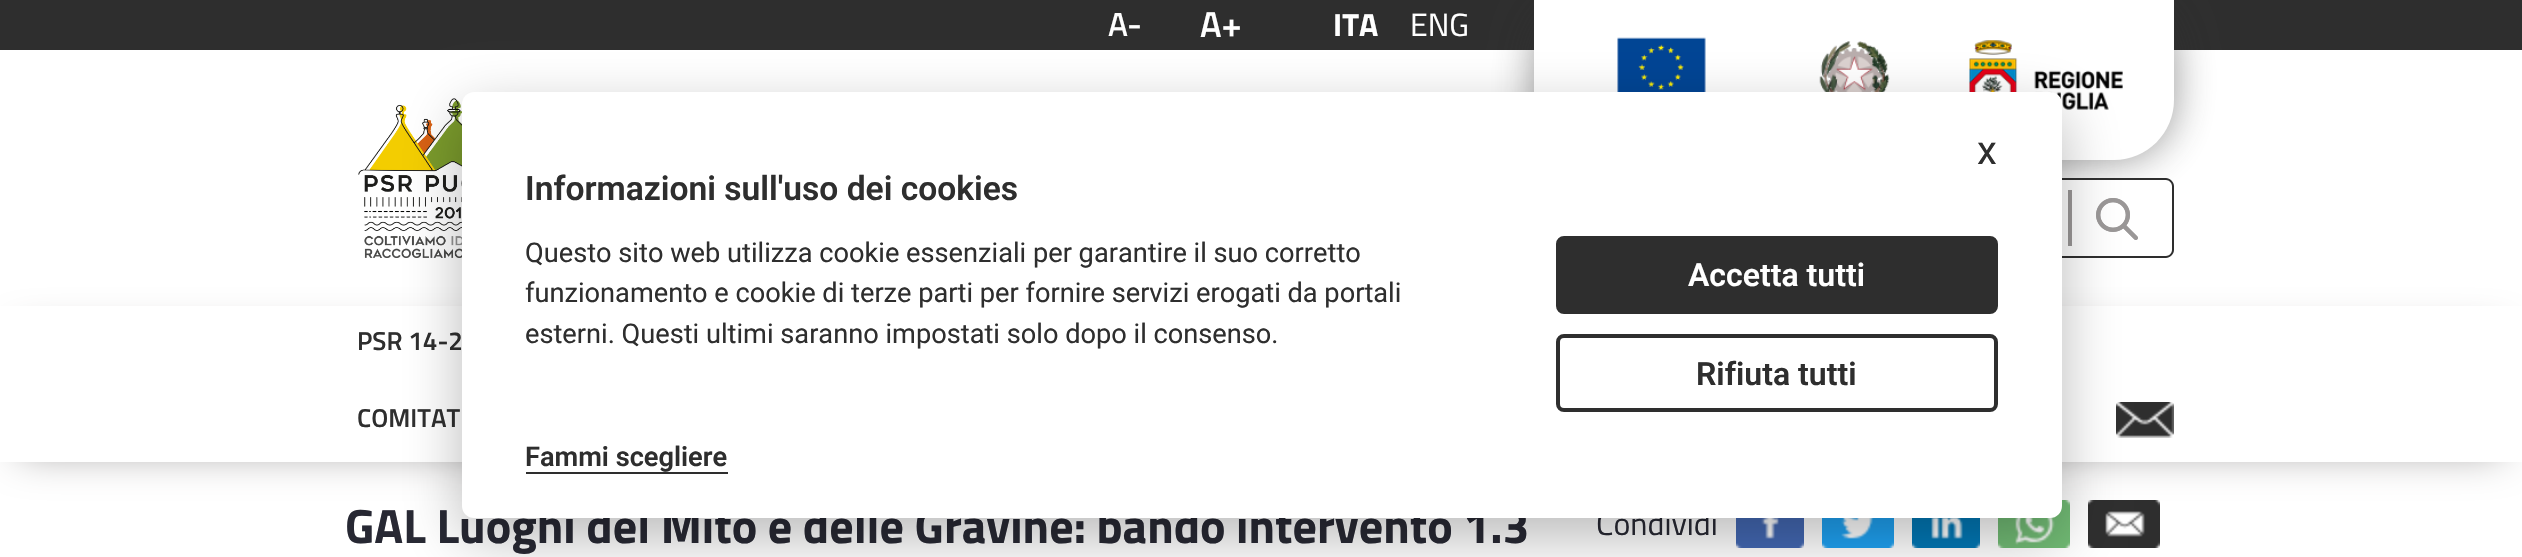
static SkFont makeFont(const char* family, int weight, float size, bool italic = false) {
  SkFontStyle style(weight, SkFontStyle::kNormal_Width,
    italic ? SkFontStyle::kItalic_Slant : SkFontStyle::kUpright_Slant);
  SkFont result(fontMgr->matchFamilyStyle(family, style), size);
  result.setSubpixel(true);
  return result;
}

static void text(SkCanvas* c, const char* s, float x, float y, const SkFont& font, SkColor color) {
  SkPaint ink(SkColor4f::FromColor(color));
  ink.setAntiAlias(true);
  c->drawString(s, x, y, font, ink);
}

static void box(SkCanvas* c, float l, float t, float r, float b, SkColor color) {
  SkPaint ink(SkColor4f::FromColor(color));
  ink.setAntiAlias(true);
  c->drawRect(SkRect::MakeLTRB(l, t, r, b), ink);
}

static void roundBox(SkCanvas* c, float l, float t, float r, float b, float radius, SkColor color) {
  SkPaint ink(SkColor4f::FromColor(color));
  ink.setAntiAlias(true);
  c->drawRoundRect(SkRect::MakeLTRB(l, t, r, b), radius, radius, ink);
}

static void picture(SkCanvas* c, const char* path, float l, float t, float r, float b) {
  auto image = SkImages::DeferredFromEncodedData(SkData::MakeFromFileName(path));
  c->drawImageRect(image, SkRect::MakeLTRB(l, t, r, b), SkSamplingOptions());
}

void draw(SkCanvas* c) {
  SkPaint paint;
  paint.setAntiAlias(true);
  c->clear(0xffffffff);
  box(c, 0, 0, 2522, 50, 0xff2e2e2e);
  SkFont face1 = makeFont("Titillium Web", 700, 32);
  text(c, "A-", 1108, 36, face1, 0xffffffff);
  SkFont face2 = makeFont("Titillium Web", 600, 36);
  text(c, "A+", 1200, 37, face2, 0xffffffff);
  SkFont face3 = makeFont("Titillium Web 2", 700, 32);
  text(c, "ITA", 1333, 36, face3, 0xffffffff);
  SkFont face4 = makeFont("Titillium Web", 400, 32);
  text(c, "ENG", 1410, 36, face4, 0xffffffff);
  paint.setColor(0x802e2e2e);
  paint.setMaskFilter(SkMaskFilter::MakeBlur(kNormal_SkBlurStyle, 20));
  c->drawRoundRect(SkRect::MakeLTRB(1534, 0, 2174, 160), 60, 60, paint);
  paint.setMaskFilter(nullptr);
  paint.setColor(0xffffffff);
  c->drawPath(SkPathBuilder().moveTo(1534, 0).lineTo(2174, 0).lineTo(2174, 100).cubicTo(2174, 133, 2147, 160, 2114, 160).lineTo(1594, 160).cubicTo(1561, 160, 1534, 133, 1534, 100).close().detach(), paint);
  picture(c, "img_01.png", 1584, 37, 1741, 92);
  picture(c, "img_02.png", 1819, 41, 1890, 92);
  picture(c, "img_03.png", 1969, 40, 2123, 121);
  picture(c, "img_04.png", 358, 98, 462, 258);
  c->drawPath(SkPathBuilder().moveTo(2058, 178).lineTo(2166, 178).cubicTo(2170.5f, 178, 2174, 181.5f, 2174, 186).lineTo(2174, 250).cubicTo(2174, 254.5f, 2170.5f, 258, 2166, 258).lineTo(2058, 258).close().detach(), paint);
  paint.setColor(0xff2e2e2e);
  c->drawPath(SkPathBuilder(SkPathFillType::kEvenOdd).moveTo(2058, 178).lineTo(2166, 178).cubicTo(2170, 178, 2174, 182, 2174, 186).lineTo(2174, 250).cubicTo(2174, 254, 2170, 258, 2166, 258).lineTo(2058, 258).close().moveTo(2058, 180).lineTo(2166, 180).cubicTo(2169, 180, 2172, 183, 2172, 186).lineTo(2172, 250).cubicTo(2172, 253, 2169, 256, 2166, 256).lineTo(2058, 256).close().detach(), paint);
  box(c, 2068, 190, 2072, 246, 0xff9a9797);
  picture(c, "img_05.png", 2096, 198, 2138, 240);
  c->save();
  c->clipPath(SkPathBuilder(SkPathFillType::kEvenOdd).moveTo(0, 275).lineTo(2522, 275).lineTo(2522, 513).lineTo(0, 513).close().moveTo(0, 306).lineTo(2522, 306).lineTo(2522, 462).lineTo(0, 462).close().detach(), true);
  paint.setColor(0xff9a9797);
  paint.setMaskFilter(SkMaskFilter::MakeBlur(kNormal_SkBlurStyle, 20));
  c->drawRect(SkRect::MakeLTRB(20, 336, 2502, 452), paint);
  paint.setMaskFilter(nullptr);
  c->restore();
  SkFont face5 = makeFont("Titillium Web", 600, 26);
  text(c, "PSR 14-2", 357, 350, face5, 0xff2e2e2e);
  text(c, "COMITAT", 357, 427, face5, 0xff2e2e2e);
  picture(c, "img_06.png", 2116, 402, 2174, 438);
  SkFont face6 = makeFont("Titillium Web 2", 700, 48);
  text(c, "GAL Luoghi del Mito e delle Gravine: bando intervento 1.3", 345, 543, face6, 0xff272833);
  text(c, "Condividi", 1596, 535, face4, 0xff272833);
  picture(c, "img_07.png", 1736, 518, 1804, 548);
  picture(c, "img_08.png", 1822, 518, 1894, 548);
  picture(c, "img_09.png", 1912, 518, 1980, 548);
  picture(c, "img_10.png", 1998, 500, 2070, 548);
  picture(c, "img_11.png", 2088, 500, 2160, 548);
  paint.setColor(0x47020203);
  paint.setMaskFilter(SkMaskFilter::MakeBlur(kNormal_SkBlurStyle, 30));
  c->drawRoundRect(SkRect::MakeLTRB(462, 112, 2062, 538), 12, 12, paint);
  paint.setMaskFilter(nullptr);
  roundBox(c, 462, 92, 2062, 518, 12, 0xffffffff);
  SkFont face7 = makeFont("Roboto", 400, 40);
  text(c, "x", 1977, 164, face7, 0xff2e2e2e);
  SkFont face8 = makeFont("Roboto", 600, 33.6f);
  text(c, "Informazioni sull'uso dei cookies", 525, 200, face8, 0xff2e2e2e);
  SkFont face9 = makeFont("Roboto", 400, 27.2f);
  text(c, "Questo sito web utilizza cookie essenziali per garantire il suo corretto", 525, 262, face9, 0xff2e2e2e);
  text(c, "funzionamento e cookie di terze parti per fornire servizi erogati da portali", 525, 302, face9, 0xff2e2e2e);
  text(c, "esterni. Questi ultimi saranno impostati solo dopo il consenso.", 525, 343, face9, 0xff2e2e2e);
  SkFont face10 = makeFont("Roboto", 600, 27.2f);
  text(c, "Fammi scegliere", 525, 466, face10, 0xff2e2e2e);
  box(c, 526, 472, 728, 474, 0xff2e2e2e);
  paint.setColor(0xff2e2e2e);
  c->drawRoundRect(SkRect::MakeLTRB(1558, 238, 1996, 312), 6, 6, paint);
  paint.setStyle(SkPaint::kStroke_Style);
  paint.setStrokeWidth(4);
  c->drawRoundRect(SkRect::MakeLTRB(1558, 238, 1996, 312), 6, 6, paint);
  SkFont face11 = makeFont("Roboto", 600, 32);
  text(c, "Accetta tutti", 1688, 286, face11, 0xffffffff);
  c->drawRoundRect(SkRect::MakeLTRB(1558, 336, 1996, 410), 6, 6, paint);
  text(c, "Rifiuta tutti", 1696, 385, face11, 0xff2e2e2e);
}
